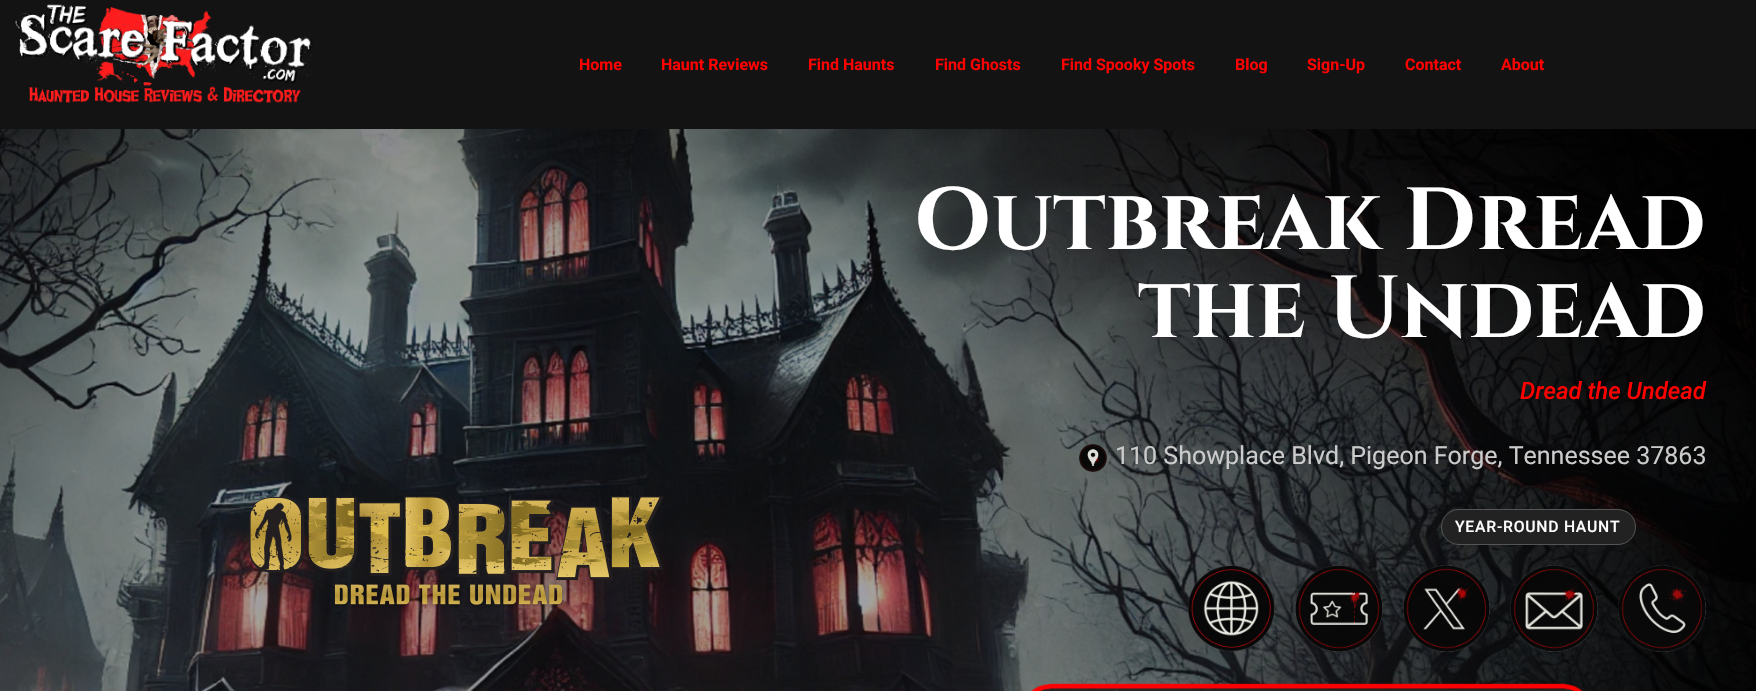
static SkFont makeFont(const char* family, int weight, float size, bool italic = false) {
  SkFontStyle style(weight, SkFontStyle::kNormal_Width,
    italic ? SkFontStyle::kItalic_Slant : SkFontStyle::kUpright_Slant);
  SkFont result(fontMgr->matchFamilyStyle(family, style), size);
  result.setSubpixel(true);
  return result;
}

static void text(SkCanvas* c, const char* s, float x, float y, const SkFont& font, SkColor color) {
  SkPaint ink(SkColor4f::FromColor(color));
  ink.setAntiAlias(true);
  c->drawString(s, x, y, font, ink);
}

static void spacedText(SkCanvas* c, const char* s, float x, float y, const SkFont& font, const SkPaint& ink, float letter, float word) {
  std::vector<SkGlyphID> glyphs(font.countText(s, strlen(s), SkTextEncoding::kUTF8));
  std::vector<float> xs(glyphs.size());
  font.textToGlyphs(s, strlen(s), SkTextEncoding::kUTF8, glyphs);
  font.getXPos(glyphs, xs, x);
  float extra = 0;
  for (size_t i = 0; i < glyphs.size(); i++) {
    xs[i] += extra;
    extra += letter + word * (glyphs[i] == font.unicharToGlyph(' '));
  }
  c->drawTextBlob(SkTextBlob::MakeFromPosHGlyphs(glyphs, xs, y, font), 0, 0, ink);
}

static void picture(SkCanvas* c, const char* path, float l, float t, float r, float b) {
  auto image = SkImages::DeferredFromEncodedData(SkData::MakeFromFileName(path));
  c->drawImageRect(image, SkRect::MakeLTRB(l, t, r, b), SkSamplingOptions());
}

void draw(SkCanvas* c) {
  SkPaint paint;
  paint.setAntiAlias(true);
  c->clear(0xff131313);
  picture(c, "img_01.png", 15, 4, 313, 103);
  SkFont face1 = makeFont("Roboto", 700, 16);
  text(c, "Home", 579, 70, face1, 0xffff0000);
  text(c, "Haunt Reviews", 661, 70, face1, 0xffff0000);
  text(c, "Find Haunts", 808, 70, face1, 0xffff0000);
  text(c, "Find Ghosts", 935, 70, face1, 0xffff0000);
  text(c, "Find Spooky Spots", 1061, 70, face1, 0xffff0000);
  text(c, "Blog", 1235, 70, face1, 0xffff0000);
  text(c, "Sign-Up", 1307, 70, face1, 0xffff0000);
  text(c, "Contact", 1405, 70, face1, 0xffff0000);
  text(c, "About", 1501, 70, face1, 0xffff0000);
  picture(c, "img_02.png", 0, 129, 1756, 691);
  SkFont face2 = makeFont("Cinzel", 700, 87.75f);
  text(c, "Outbreak Dread", 914, 249, face2, 0xffffffff);
  text(c, "the Undead", 1138, 337, face2, 0xffffffff);
  SkFont face3 = makeFont("Roboto", 500, 24, true);
  text(c, "Dread the Undead", 1520, 399, face3, 0xffff0000);
  picture(c, "img_03.png", 1079, 444, 1107, 472);
  SkFont face4 = makeFont("Roboto", 400, 25);
  text(c, "110 Showplace Blvd, Pigeon Forge, Tennessee 37863", 1115, 464, face4, 0xffcbcbcb);
  paint.setColor(0xff222222);
  c->drawRoundRect(SkRect::MakeLTRB(1441.5f, 509.5f, 1635.5f, 544.5f), 17.5f, 17.5f, paint);
  paint.setStyle(SkPaint::kStroke_Style);
  paint.setStrokeWidth(1);
  paint.setColor(0xff555555);
  c->drawRoundRect(SkRect::MakeLTRB(1441.5f, 509.5f, 1635.5f, 544.5f), 17.5f, 17.5f, paint);
  SkFont face5 = makeFont("Roboto", 500, 15.75f);
  paint.setStyle(SkPaint::kFill_Style);
  paint.setColor(0xffffffff);
  spacedText(c, "YEAR-ROUND HAUNT", 1455, 532, face5, paint, 0.75f, 0);
  picture(c, "img_04.png", 1188, 565, 1275, 652);
  picture(c, "img_05.png", 1295, 565, 1383, 652);
  picture(c, "img_06.png", 1403, 565, 1490, 652);
  picture(c, "img_07.png", 1510, 565, 1598, 652);
  picture(c, "img_08.png", 1618, 565, 1706, 652);
  picture(c, "img_09.png", 1031, 683, 1583, 691);
  picture(c, "img_10.png", 249, 496, 664, 609);
}
